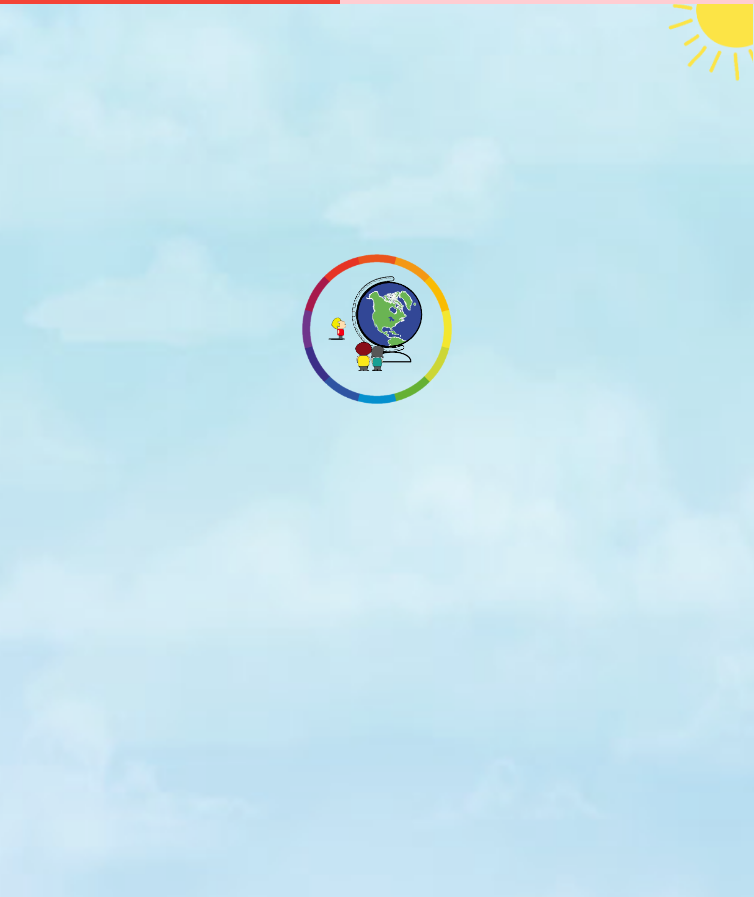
static void box(SkCanvas* c, float l, float t, float r, float b, SkColor color) {
  SkPaint ink(SkColor4f::FromColor(color));
  ink.setAntiAlias(true);
  c->drawRect(SkRect::MakeLTRB(l, t, r, b), ink);
}

static void picture(SkCanvas* c, const char* path, float l, float t, float r, float b) {
  auto image = SkImages::DeferredFromEncodedData(SkData::MakeFromFileName(path));
  c->drawImageRect(image, SkRect::MakeLTRB(l, t, r, b), SkSamplingOptions());
}

void draw(SkCanvas* c) {
  SkPaint paint;
  paint.setAntiAlias(true);
  c->clear(0xffffffff);
  picture(c, "img_01.png", 0, 4, 754, 897);
  box(c, 0, 0, 340, 4, 0xfff44336);
  box(c, 340, 0, 754, 4, 0xffffcdd2);
  picture(c, "img_02.png", 302, 254, 452, 404);
  picture(c, "img_03.png", 328, 276, 423, 371);
  picture(c, "img_05.png", 696, 4, 753, 63);
  picture(c, "img_04.png", 668, 4, 753, 82);
}
